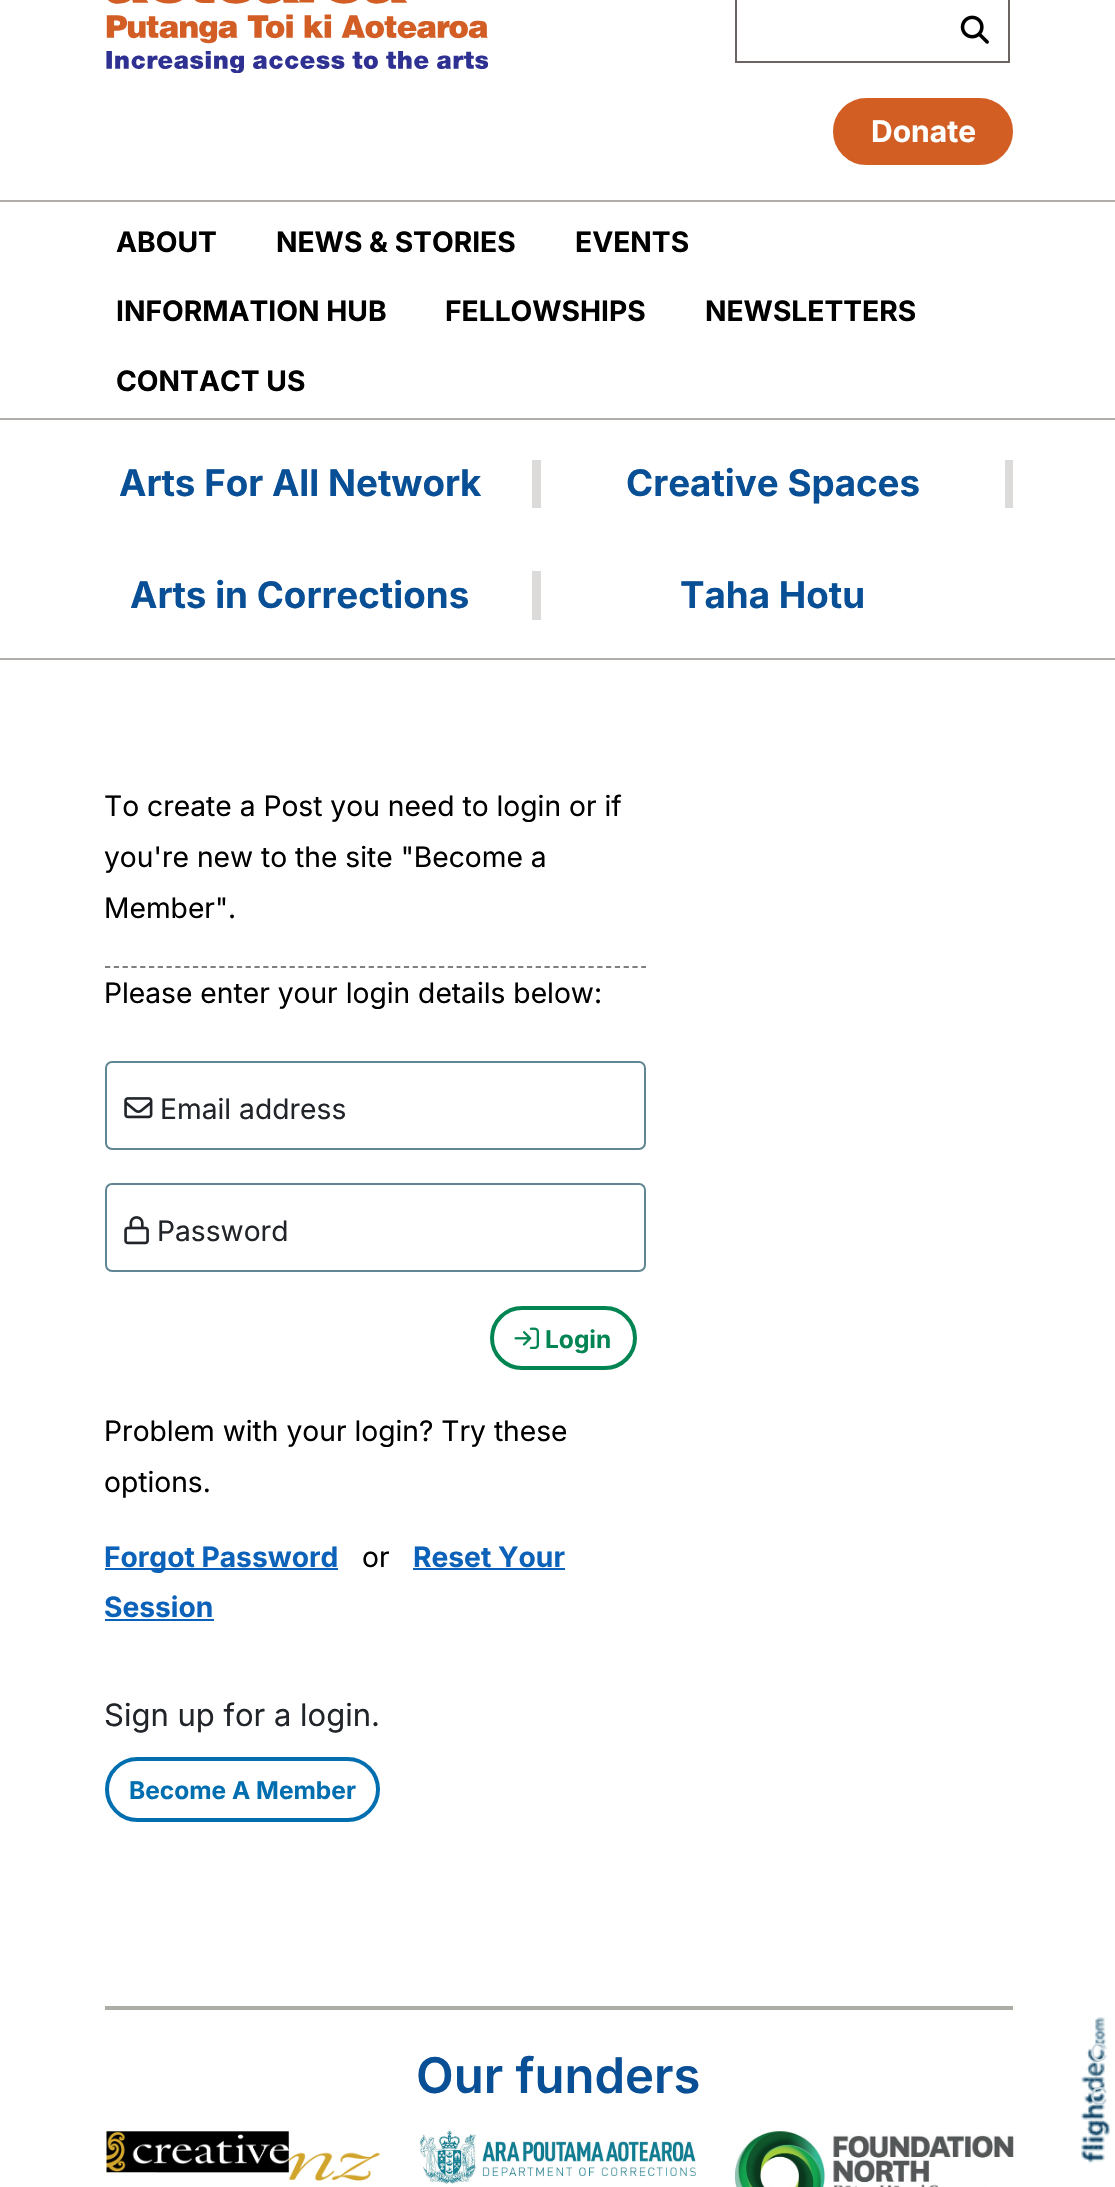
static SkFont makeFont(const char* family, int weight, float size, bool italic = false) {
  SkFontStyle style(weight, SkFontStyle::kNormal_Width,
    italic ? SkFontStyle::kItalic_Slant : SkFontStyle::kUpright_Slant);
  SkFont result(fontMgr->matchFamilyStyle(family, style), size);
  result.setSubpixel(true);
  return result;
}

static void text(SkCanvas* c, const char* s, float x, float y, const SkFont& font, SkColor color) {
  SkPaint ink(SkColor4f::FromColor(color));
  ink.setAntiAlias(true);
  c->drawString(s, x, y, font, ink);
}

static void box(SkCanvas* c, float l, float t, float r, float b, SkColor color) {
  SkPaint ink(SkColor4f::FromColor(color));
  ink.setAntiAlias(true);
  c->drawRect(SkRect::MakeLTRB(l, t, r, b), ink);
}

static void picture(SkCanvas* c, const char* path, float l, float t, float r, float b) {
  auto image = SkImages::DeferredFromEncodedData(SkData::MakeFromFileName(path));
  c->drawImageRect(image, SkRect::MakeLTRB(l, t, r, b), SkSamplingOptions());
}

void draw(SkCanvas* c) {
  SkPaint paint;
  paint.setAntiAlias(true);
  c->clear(0xffffffff);
  box(c, 0, 200, 1115, 202, 0xffb0adab);
  picture(c, "img_01.png", 106, 0, 488, 73);
  paint.setStyle(SkPaint::kStroke_Style);
  paint.setStrokeWidth(2);
  paint.setColor(0xff6b6462);
  c->drawRect(SkRect::MakeLTRB(736, -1, 1009, 62), paint);
  picture(c, "img_02.png", 960, 15, 989, 44);
  paint.setStyle(SkPaint::kFill_Style);
  paint.setColor(0xffd25e24);
  c->drawRoundRect(SkRect::MakeLTRB(834, 99, 1012, 164), 32.5f, 32.5f, paint);
  paint.setStyle(SkPaint::kStroke_Style);
  c->drawRoundRect(SkRect::MakeLTRB(834, 99, 1012, 164), 32.5f, 32.5f, paint);
  SkFont face1 = makeFont("Inter", 700, 30);
  text(c, "Donate", 871, 142, face1, 0xffffffff);
  box(c, 0, 418, 1115, 420, 0xffb0adab);
  SkFont face2 = makeFont("Inter", 700, 28.2f);
  text(c, "ABOUT", 116, 252, face2, 0xff000000);
  text(c, "NEWS & STORIES", 276, 252, face2, 0xff000000);
  text(c, "EVENTS", 575, 252, face2, 0xff000000);
  text(c, "INFORMATION HUB", 116, 321, face2, 0xff000000);
  text(c, "FELLOWSHIPS", 445, 321, face2, 0xff000000);
  text(c, "NEWSLETTERS", 705, 321, face2, 0xff000000);
  text(c, "CONTACT US", 116, 391, face2, 0xff000000);
  box(c, 532, 460, 541, 508, 0xffdcdbda);
  SkFont face3 = makeFont("Inter", 700, 36.75f);
  text(c, "Arts For All Network", 119, 496, face3, 0xff094f95);
  box(c, 1005, 460, 1013, 508, 0xffdcdbda);
  text(c, "Creative Spaces", 626, 496, face3, 0xff094f95);
  box(c, 532, 571, 541, 620, 0xffdcdbda);
  text(c, "Arts in Corrections", 130, 608, face3, 0xff094f95);
  text(c, "Taha Hotu", 680, 608, face3, 0xff094f95);
  box(c, 0, 658, 1115, 660, 0xffb0adab);
  paint.setStrokeWidth(1.8f);
  paint.setColor(0xff808080);
  paint.setPathEffect(SkDashPathEffect::Make({{5.25f, 3.54f}}, 0));
  c->drawPath(SkPathBuilder().moveTo(105, 967).lineTo(646, 967).detach(), paint);
  paint.setPathEffect(nullptr);
  SkFont face4 = makeFont("Inter", 400, 28.2f);
  text(c, "To create a Post you need to login or if", 104, 816, face4, 0xff000000);
  text(c, "you're new to the site \"Become a", 104, 867, face4, 0xff000000);
  text(c, "Member\".", 104, 918, face4, 0xff000000);
  text(c, "Please enter your login details below:", 104, 1003, face4, 0xff000000);
  paint.setStrokeWidth(2);
  paint.setColor(0xff5f8692);
  c->drawRoundRect(SkRect::MakeLTRB(106, 1062, 645, 1149), 6, 6, paint);
  picture(c, "img_03.png", 124, 1097, 153, 1119);
  text(c, "Email address", 160, 1119, face4, 0xff212529);
  c->drawRoundRect(SkRect::MakeLTRB(106, 1184, 645, 1271), 6, 6, paint);
  picture(c, "img_04.png", 124, 1216, 149, 1245);
  text(c, "Password", 157, 1241, face4, 0xff212529);
  paint.setStrokeWidth(4);
  paint.setColor(0xff028553);
  c->drawRoundRect(SkRect::MakeLTRB(492, 1308, 635, 1368), 30, 30, paint);
  picture(c, "img_05.png", 514, 1327, 539, 1349);
  SkFont face5 = makeFont("Inter", 700, 24.5f);
  text(c, "Login", 545, 1348, face5, 0xff028553);
  text(c, "Problem with your login? Try these", 104, 1441, face4, 0xff000000);
  text(c, "options.", 104, 1492, face4, 0xff000000);
  box(c, 105, 1568, 338, 1570, 0xff0c62b9);
  text(c, "Forgot Password", 104, 1567, face2, 0xff0c62b9);
  text(c, "or", 362, 1567, face4, 0xff000000);
  text(c, "Reset Your", 413, 1567, face2, 0xff0c62b9);
  box(c, 413, 1568, 565, 1570, 0xff0c62b9);
  text(c, "Session", 104, 1617, face2, 0xff0c62b9);
  box(c, 105, 1619, 214, 1621, 0xff0c62b9);
  SkFont face6 = makeFont("Inter", 400, 31);
  text(c, "Sign up for a login.", 104, 1726, face6, 0xff212529);
  paint.setColor(0xff006eaf);
  c->drawRoundRect(SkRect::MakeLTRB(107, 1759, 378, 1820), 30.5f, 30.5f, paint);
  text(c, "Become A Member", 129, 1799, face5, 0xff006eaf);
  picture(c, "img_06.png", 1081, 2017, 1110, 2164);
  box(c, 105, 2006, 1013, 2010, 0xffaaaea7);
  SkFont face7 = makeFont("Inter", 600, 49);
  text(c, "Our funders", 416, 2093, face7, 0xff094f95);
  picture(c, "img_07.png", 106, 2131, 380, 2181);
  picture(c, "img_08.png", 420, 2131, 696, 2184);
  picture(c, "img_09.png", 735, 2131, 1014, 2187);
  SkFont face8 = makeFont("Inter", 400, 24.5f);
  text(c, "C", 1090, 2061, face8, 0xffd1dce2);
  text(c, "C", 1090, 2105, face8, 0xffc5d3db);
}
